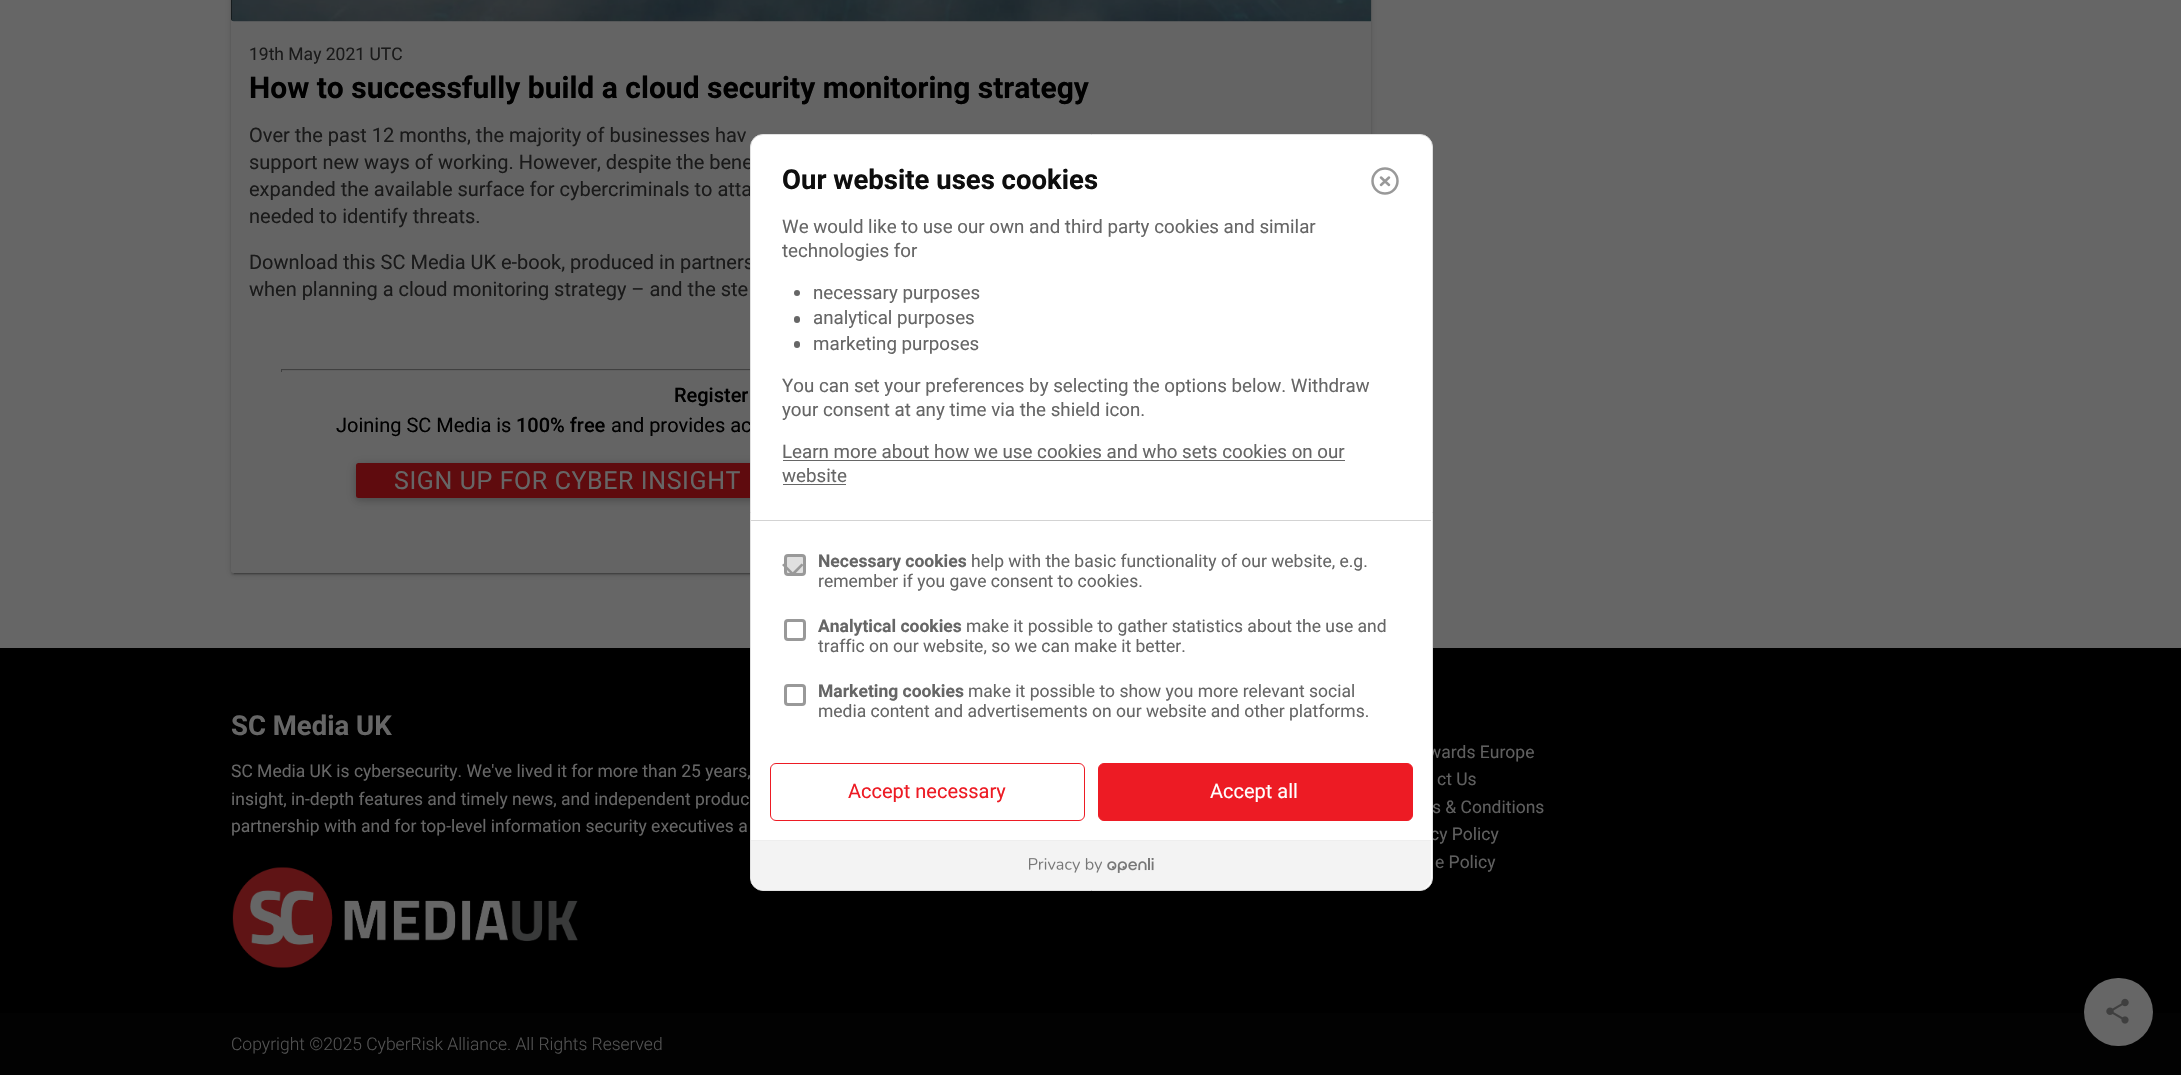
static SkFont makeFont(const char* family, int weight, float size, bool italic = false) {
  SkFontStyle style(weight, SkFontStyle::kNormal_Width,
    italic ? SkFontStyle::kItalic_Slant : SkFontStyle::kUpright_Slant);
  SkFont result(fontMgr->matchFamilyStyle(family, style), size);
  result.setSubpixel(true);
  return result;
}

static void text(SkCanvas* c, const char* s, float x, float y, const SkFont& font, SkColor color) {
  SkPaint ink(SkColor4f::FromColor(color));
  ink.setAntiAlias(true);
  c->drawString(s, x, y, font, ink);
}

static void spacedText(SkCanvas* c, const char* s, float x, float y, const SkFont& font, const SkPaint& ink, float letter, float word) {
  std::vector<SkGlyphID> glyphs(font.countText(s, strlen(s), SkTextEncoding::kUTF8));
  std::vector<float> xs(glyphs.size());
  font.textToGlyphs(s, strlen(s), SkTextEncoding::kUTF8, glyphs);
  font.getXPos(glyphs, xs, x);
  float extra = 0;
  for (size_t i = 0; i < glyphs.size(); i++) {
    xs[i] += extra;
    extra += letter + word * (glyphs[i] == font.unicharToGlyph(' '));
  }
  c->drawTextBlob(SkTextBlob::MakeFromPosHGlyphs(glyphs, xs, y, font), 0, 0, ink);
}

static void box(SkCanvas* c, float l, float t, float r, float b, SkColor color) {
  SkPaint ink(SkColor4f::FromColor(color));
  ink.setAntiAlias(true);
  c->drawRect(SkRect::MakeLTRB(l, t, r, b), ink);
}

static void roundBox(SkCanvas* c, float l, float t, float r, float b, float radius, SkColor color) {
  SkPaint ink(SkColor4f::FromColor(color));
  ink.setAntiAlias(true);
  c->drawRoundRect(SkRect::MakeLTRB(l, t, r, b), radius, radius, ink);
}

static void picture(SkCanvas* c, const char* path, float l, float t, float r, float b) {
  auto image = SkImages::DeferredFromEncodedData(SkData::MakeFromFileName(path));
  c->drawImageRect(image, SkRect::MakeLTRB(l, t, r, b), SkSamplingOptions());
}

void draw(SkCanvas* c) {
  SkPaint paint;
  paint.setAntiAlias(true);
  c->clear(0xff666666);
  paint.setColor(0x1f000000);
  paint.setMaskFilter(SkMaskFilter::MakeBlur(kNormal_SkBlurStyle, 3));
  c->drawRoundRect(SkRect::MakeLTRB(231, -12, 1371, 574), 2.5f, 2.5f, paint);
  paint.setMaskFilter(nullptr);
  paint.setColor(0x33000000);
  paint.setMaskFilter(SkMaskFilter::MakeBlur(kNormal_SkBlurStyle, 0.5f));
  c->drawRect(SkRect::MakeLTRB(234, -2, 1369, 574), paint);
  paint.setMaskFilter(nullptr);
  paint.setColor(0x24000000);
  paint.setMaskFilter(SkMaskFilter::MakeBlur(kNormal_SkBlurStyle, 1));
  c->drawRoundRect(SkRect::MakeLTRB(231, -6, 1371, 575), 2.5f, 2.5f, paint);
  paint.setMaskFilter(nullptr);
  roundBox(c, 231, -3, 1371, 573, 2.5f, 0xff646464);
  paint.setColor(0xff000000);
  c->drawPath(SkPathBuilder().moveTo(233.5f, -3).lineTo(1371, -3).lineTo(1371, 21).lineTo(233.5f, 21).cubicTo(232, 21, 231, 20, 231, 18.5f).lineTo(231, -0.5f).cubicTo(231, -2, 232, -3, 233.5f, -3).close().detach(), paint);
  picture(c, "img_01.png", 231, 0, 1372, 22);
  SkFont face1 = makeFont("Roboto", 400, 17.5f);
  text(c, "19th May 2021 UTC", 249, 60, face1, 0xff1a1a1a);
  SkFont face2 = makeFont("Roboto", 700, 30);
  text(c, "How to successfully build a cloud security monitoring strategy", 249, 98, face2, 0xff000000);
  SkFont face3 = makeFont("Roboto", 400, 20);
  text(c, "Over the past 12 months, the majority of businesses hav", 249, 142, face3, 0xff1a1a1a);
  text(c, "support new ways of working. However, despite the bene", 249, 169, face3, 0xff1a1a1a);
  text(c, "expanded the available surface for cybercriminals to atta", 249, 196, face3, 0xff1a1a1a);
  text(c, "needed to identify threats.", 249, 223, face3, 0xff1a1a1a);
  text(c, "Download this SC Media UK e-book, produced in partners", 249, 269, face3, 0xff1a1a1a);
  text(c, "when planning a cloud monitoring strategy – and the ste", 249, 296, face3, 0xff1a1a1a);
  box(c, 281, 369, 750, 370, 0xff404040);
  box(c, 281, 370, 750, 371, 0xff5f5f5f);
  box(c, 281, 369, 282, 372, 0xff404040);
  SkFont face4 = makeFont("Roboto", 500, 20);
  text(c, "Register", 674, 402, face4, 0xff000000);
  text(c, "Joining SC Media is", 336, 432, face3, 0xff000000);
  text(c, "100% free", 516, 432, face4, 0xff000000);
  text(c, "and provides ac", 611, 432, face3, 0xff000000);
  paint.setColor(0x1f000000);
  paint.setMaskFilter(SkMaskFilter::MakeBlur(kNormal_SkBlurStyle, 6));
  c->drawRoundRect(SkRect::MakeLTRB(356, 465, 1245, 500), 2.5f, 2.5f, paint);
  paint.setMaskFilter(nullptr);
  paint.setColor(0x29000000);
  paint.setMaskFilter(SkMaskFilter::MakeBlur(kNormal_SkBlurStyle, 3));
  c->drawRoundRect(SkRect::MakeLTRB(356, 465, 1245, 500), 2.5f, 2.5f, paint);
  paint.setMaskFilter(nullptr);
  roundBox(c, 356, 463, 1245, 498, 2.5f, 0xff5f0b0e);
  SkFont face5 = makeFont("Roboto", 400, 25);
  paint.setColor(0xff666666);
  spacedText(c, "SIGN UP FOR CYBER INSIGHT", 394, 489, face5, paint, 0.6f, 0);
  box(c, 0, 648, 2181, 1013, 0xff000000);
  box(c, 0, 1013, 2181, 1075, 0xff020202);
  roundBox(c, 2084, 978, 2153, 1046, 34, 0xff666666);
  picture(c, "img_02.png", 2106, 998, 2129, 1024);
  SkFont face6 = makeFont("Roboto", 700, 27.5f);
  text(c, "SC Media UK", 231, 735, face6, 0xff666666);
  text(c, "SC Media UK is cybersecurity. We've lived it for more than 25 years,", 231, 777, face1, 0xff666666);
  text(c, "insight, in-depth features and timely news, and independent produc", 231, 805, face1, 0xff666666);
  text(c, "partnership with and for top-level information security executives a", 231, 832, face1, 0xff666666);
  picture(c, "img_03.png", 232, 867, 578, 968);
  text(c, "wards Europe", 1428, 758, face1, 0xff5f5f5f);
  text(c, "ct Us", 1437, 785, face1, 0xff5f5f5f);
  text(c, "s & Conditions", 1432, 813, face1, 0xff5f5f5f);
  text(c, "cy Policy", 1430, 840, face1, 0xff5f5f5f);
  text(c, "e Policy", 1435, 868, face1, 0xff5f5f5f);
  SkFont face7 = makeFont("Roboto", 300, 17.5f);
  text(c, "Copyright ©2025 CyberRisk Alliance. All Rights Reserved", 231, 1050, face7, 0xff525252);
  paint.setColor(0xffffffff);
  c->drawRoundRect(SkRect::MakeLTRB(750.5f, 134.5f, 1432.5f, 890.5f), 12.5f, 12.5f, paint);
  paint.setStyle(SkPaint::kStroke_Style);
  paint.setStrokeWidth(1);
  paint.setColor(0xffe1e1e1);
  c->drawRoundRect(SkRect::MakeLTRB(750.5f, 134.5f, 1432.5f, 890.5f), 12.5f, 12.5f, paint);
  box(c, 751, 520, 1431, 521, 0xffd3d3d3);
  text(c, "Our website uses cookies", 782, 189, face6, 0xff0e0e0e);
  paint.setStrokeWidth(2.5f);
  paint.setColor(0xff999999);
  c->drawCircle(1385, 181, 12.5f, paint);
  paint.setStrokeCap(SkPaint::kRound_Cap);
  paint.setStrokeJoin(SkPaint::kRound_Join);
  c->drawPath(SkPathBuilder().moveTo(1389, 177.5f).lineTo(1381, 185).moveTo(1381, 177.5f).lineTo(1389, 185).detach(), paint);
  SkFont face8 = makeFont("Roboto", 400, 18.75f);
  text(c, "We would like to use our own and third party cookies and similar", 782, 233, face8, 0xff666666);
  text(c, "technologies for", 782, 257, face8, 0xff666666);
  paint.setStyle(SkPaint::kFill_Style);
  paint.setColor(0xff666666);
  c->drawCircle(797, 293, 3, paint);
  text(c, "necessary purposes", 813, 299, face8, 0xff666666);
  roundBox(c, 794, 316, 800, 323, 3, 0xff666666);
  text(c, "analytical purposes", 813, 324, face8, 0xff666666);
  roundBox(c, 794, 341, 800, 348, 3, 0xff666666);
  text(c, "marketing purposes", 813, 350, face8, 0xff666666);
  text(c, "You can set your preferences by selecting the options below. Withdraw", 782, 392, face8, 0xff666666);
  text(c, "your consent at any time via the shield icon.", 782, 416, face8, 0xff666666);
  text(c, "Learn more about how we use cookies and who sets cookies on our", 782, 458, face8, 0xff666666);
  box(c, 783, 460, 1345, 461, 0xff666666);
  text(c, "website", 782, 482, face8, 0xff666666);
  box(c, 783, 484, 846, 485, 0xff666666);
  paint.setColor(0xffe0e0e0);
  c->drawRoundRect(SkRect::MakeLTRB(785.5f, 555.5f, 804.5f, 574.5f), 2.5f, 2.5f, paint);
  paint.setStyle(SkPaint::kStroke_Style);
  paint.setStrokeWidth(3);
  paint.setStrokeCap(SkPaint::kButt_Cap);
  paint.setStrokeJoin(SkPaint::kMiter_Join);
  paint.setColor(0xff999999);
  c->drawRoundRect(SkRect::MakeLTRB(785.5f, 555.5f, 804.5f, 574.5f), 2.5f, 2.5f, paint);
  paint.setStyle(SkPaint::kFill_Style);
  c->drawPath(SkPathBuilder().moveTo(801.5f, 563.5f).lineTo(803.5f, 565).lineTo(793, 576).lineTo(791, 574).close().detach(), paint);
  c->drawPath(SkPathBuilder().moveTo(784, 563.5f).lineTo(794.5f, 574).lineTo(793, 576).lineTo(782, 565).close().detach(), paint);
  SkFont face9 = makeFont("Roboto", 700, 17.5f);
  text(c, "Necessary cookies", 818, 567, face9, 0xff666666);
  text(c, "help with the basic functionality of our website, e.g.", 971, 567, face1, 0xff666666);
  text(c, "remember if you gave consent to cookies.", 818, 587, face1, 0xff666666);
  paint.setStyle(SkPaint::kStroke_Style);
  c->drawRoundRect(SkRect::MakeLTRB(785.5f, 620.5f, 804.5f, 639.5f), 2.5f, 2.5f, paint);
  text(c, "Analytical cookies", 818, 632, face9, 0xff666666);
  text(c, "make it possible to gather statistics about the use and", 966, 632, face1, 0xff666666);
  text(c, "traffic on our website, so we can make it better.", 818, 652, face1, 0xff666666);
  c->drawRoundRect(SkRect::MakeLTRB(785.5f, 685.5f, 804.5f, 704.5f), 2.5f, 2.5f, paint);
  text(c, "Marketing cookies", 818, 697, face9, 0xff666666);
  text(c, "make it possible to show you more relevant social", 968, 697, face1, 0xff666666);
  text(c, "media content and advertisements on our website and other platforms.", 818, 717, face1, 0xff666666);
  paint.setStrokeWidth(1);
  paint.setColor(0xffed1b24);
  c->drawRoundRect(SkRect::MakeLTRB(770.5f, 763.5f, 1084.5f, 820.5f), 5.5f, 5.5f, paint);
  text(c, "Accept necessary", 848, 798, face3, 0xffed1b24);
  paint.setStyle(SkPaint::kFill_Style);
  c->drawRoundRect(SkRect::MakeLTRB(1098.5f, 763.5f, 1412.5f, 820.5f), 5.5f, 5.5f, paint);
  paint.setStyle(SkPaint::kStroke_Style);
  c->drawRoundRect(SkRect::MakeLTRB(1098.5f, 763.5f, 1412.5f, 820.5f), 5.5f, 5.5f, paint);
  text(c, "Accept all", 1210, 798, face3, 0xffffffff);
  paint.setStyle(SkPaint::kFill_Style);
  paint.setColor(0xfff3f3f3);
  c->drawPath(SkPathBuilder().moveTo(751, 840).lineTo(1431, 840).lineTo(1431, 877).cubicTo(1431, 884, 1425, 890, 1418, 890).lineTo(764, 890).cubicTo(757, 890, 751, 884, 751, 877).close().detach(), paint);
  box(c, 751, 840, 1431, 841, 0xffeeeeee);
  picture(c, "img_04.png", 1029, 858, 1154, 873);
}
